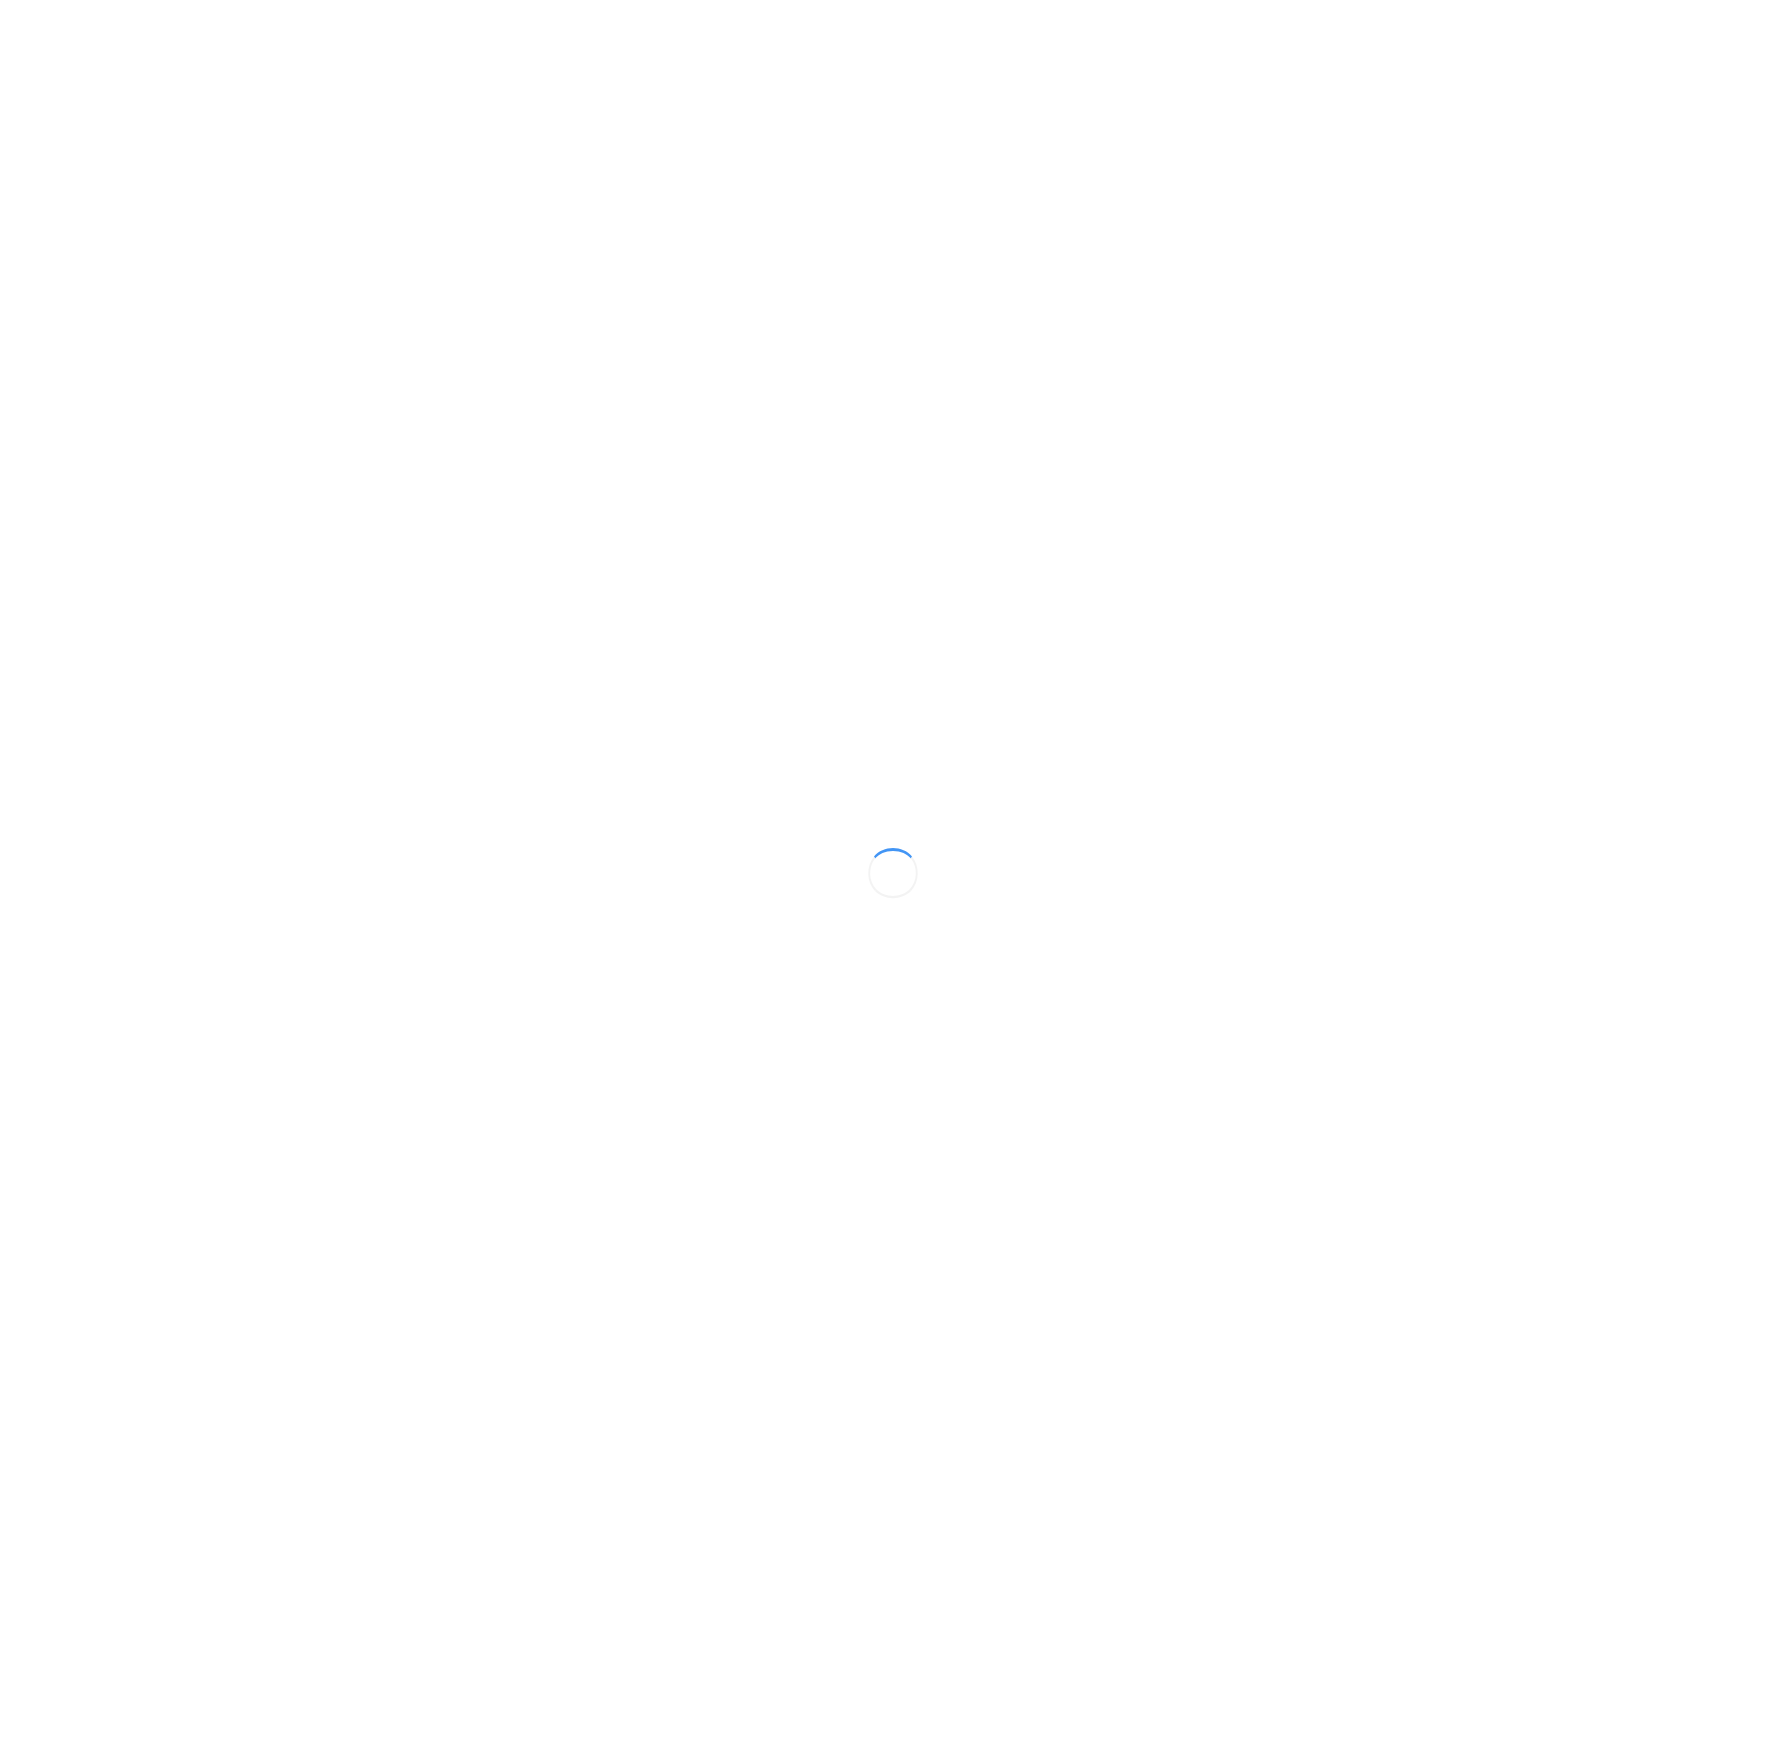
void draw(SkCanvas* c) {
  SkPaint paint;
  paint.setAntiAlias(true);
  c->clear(0xffffffff);
  paint.setColor(0xff4295f5);
  c->drawPath(SkPathBuilder().moveTo(893, 851).cubicTo(885, 851, 879, 854, 875, 858.5f).lineTo(874, 856.5f).cubicTo(883, 845, 903, 845, 912, 856.5f).lineTo(911, 858.5f).cubicTo(907, 854, 901, 851, 893, 851).close().detach(), paint);
  paint.setColor(0xfff3f3f3);
  c->drawPath(SkPathBuilder().moveTo(912, 856.5f).cubicTo(920, 866.5f, 919.5f, 882, 911, 891).lineTo(909.5f, 889.5f).cubicTo(917.5f, 881.5f, 918, 867.5f, 911, 858.5f).close().detach(), paint);
  c->drawPath(SkPathBuilder().moveTo(911, 891).cubicTo(901.5f, 900.5f, 884.5f, 900.5f, 875, 891).lineTo(876.5f, 889.5f).cubicTo(885, 898, 901, 898, 909.5f, 889.5f).close().detach(), paint);
  c->drawPath(SkPathBuilder().moveTo(874, 856.5f).cubicTo(866, 866.5f, 866.5f, 882, 875, 891).lineTo(876.5f, 889.5f).cubicTo(868.5f, 881.5f, 868, 867.5f, 875, 858.5f).close().detach(), paint);
}
